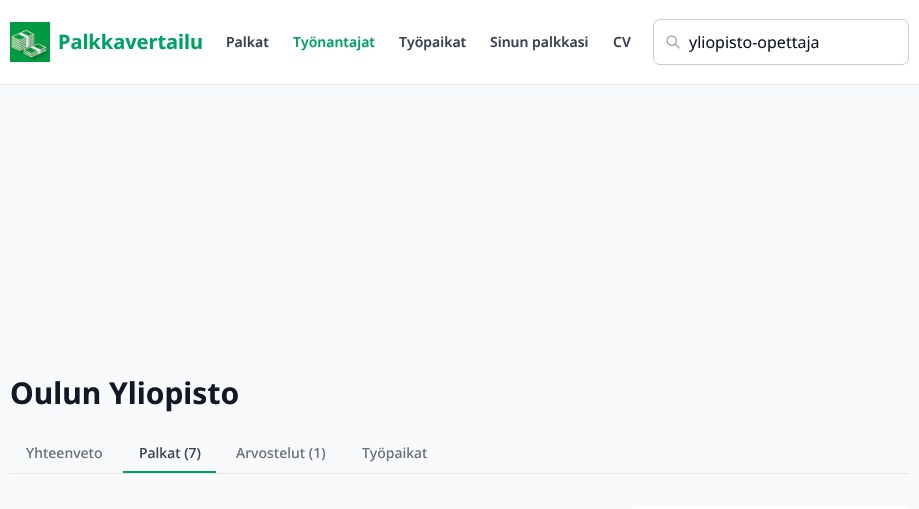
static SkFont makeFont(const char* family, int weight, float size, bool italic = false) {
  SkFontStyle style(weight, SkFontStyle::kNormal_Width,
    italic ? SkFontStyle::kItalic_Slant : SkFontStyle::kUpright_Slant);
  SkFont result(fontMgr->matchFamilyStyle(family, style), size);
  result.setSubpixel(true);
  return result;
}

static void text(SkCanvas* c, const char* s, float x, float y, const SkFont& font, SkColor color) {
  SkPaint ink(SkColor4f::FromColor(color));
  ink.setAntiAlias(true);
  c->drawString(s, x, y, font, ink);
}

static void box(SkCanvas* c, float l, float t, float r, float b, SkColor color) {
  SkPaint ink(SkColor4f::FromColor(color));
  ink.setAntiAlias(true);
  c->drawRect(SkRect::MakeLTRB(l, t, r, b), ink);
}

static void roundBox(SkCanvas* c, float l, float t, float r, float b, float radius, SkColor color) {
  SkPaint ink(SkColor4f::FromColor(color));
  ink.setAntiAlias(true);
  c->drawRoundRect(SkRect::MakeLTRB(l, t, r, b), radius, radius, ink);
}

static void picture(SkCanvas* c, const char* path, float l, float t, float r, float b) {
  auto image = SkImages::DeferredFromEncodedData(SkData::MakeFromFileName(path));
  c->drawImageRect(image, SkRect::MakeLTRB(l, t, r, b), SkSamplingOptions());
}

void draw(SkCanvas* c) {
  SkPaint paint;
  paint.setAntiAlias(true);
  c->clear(0xfff9fafb);
  box(c, 0, 0, 919, 84, 0xffffffff);
  box(c, 0, 84, 919, 85, 0xffe5e7eb);
  picture(c, "img_01.png", 10, 22, 50, 62);
  SkFont face1 = makeFont("Noto Sans", 700, 20);
  text(c, "Palkkavertailu", 58, 49, face1, 0xff00a264);
  SkFont face2 = makeFont("Noto Sans", 600, 14);
  text(c, "Palkat", 226, 47, face2, 0xff374151);
  text(c, "Työnantajat", 293, 47, face2, 0xff00a264);
  text(c, "Työpaikat", 399, 47, face2, 0xff374151);
  text(c, "Sinun palkkasi", 490, 47, face2, 0xff374151);
  text(c, "CV", 613, 47, face2, 0xff374151);
  paint.setStyle(SkPaint::kStroke_Style);
  paint.setStrokeWidth(1);
  paint.setColor(0xffcccccc);
  c->drawRoundRect(SkRect::MakeLTRB(653.5f, 19.5f, 908.5f, 64.5f), 6.5f, 6.5f, paint);
  picture(c, "img_02.png", 666, 35, 680, 49);
  SkFont face3 = makeFont("Noto Sans", 400, 16);
  text(c, "yliopisto-opettaja", 689, 48, face3, 0xff111827);
  SkFont face4 = makeFont("Noto Sans", 700, 30);
  text(c, "Oulun Yliopisto", 10, 404, face4, 0xff111827);
  box(c, 10, 473, 909, 474, 0xffe5e7eb);
  SkFont face5 = makeFont("Noto Sans", 500, 14);
  text(c, "Yhteenveto", 26, 458, face5, 0xff6b7280);
  box(c, 123, 471, 216, 473, 0xff00a264);
  text(c, "Palkat (7)", 139, 458, face5, 0xff374151);
  text(c, "Arvostelut (1)", 236, 458, face5, 0xff6b7280);
  text(c, "Työpaikat", 362, 458, face5, 0xff6b7280);
  roundBox(c, 631, 506, 909, 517, 8, 0xffffffff);
}
